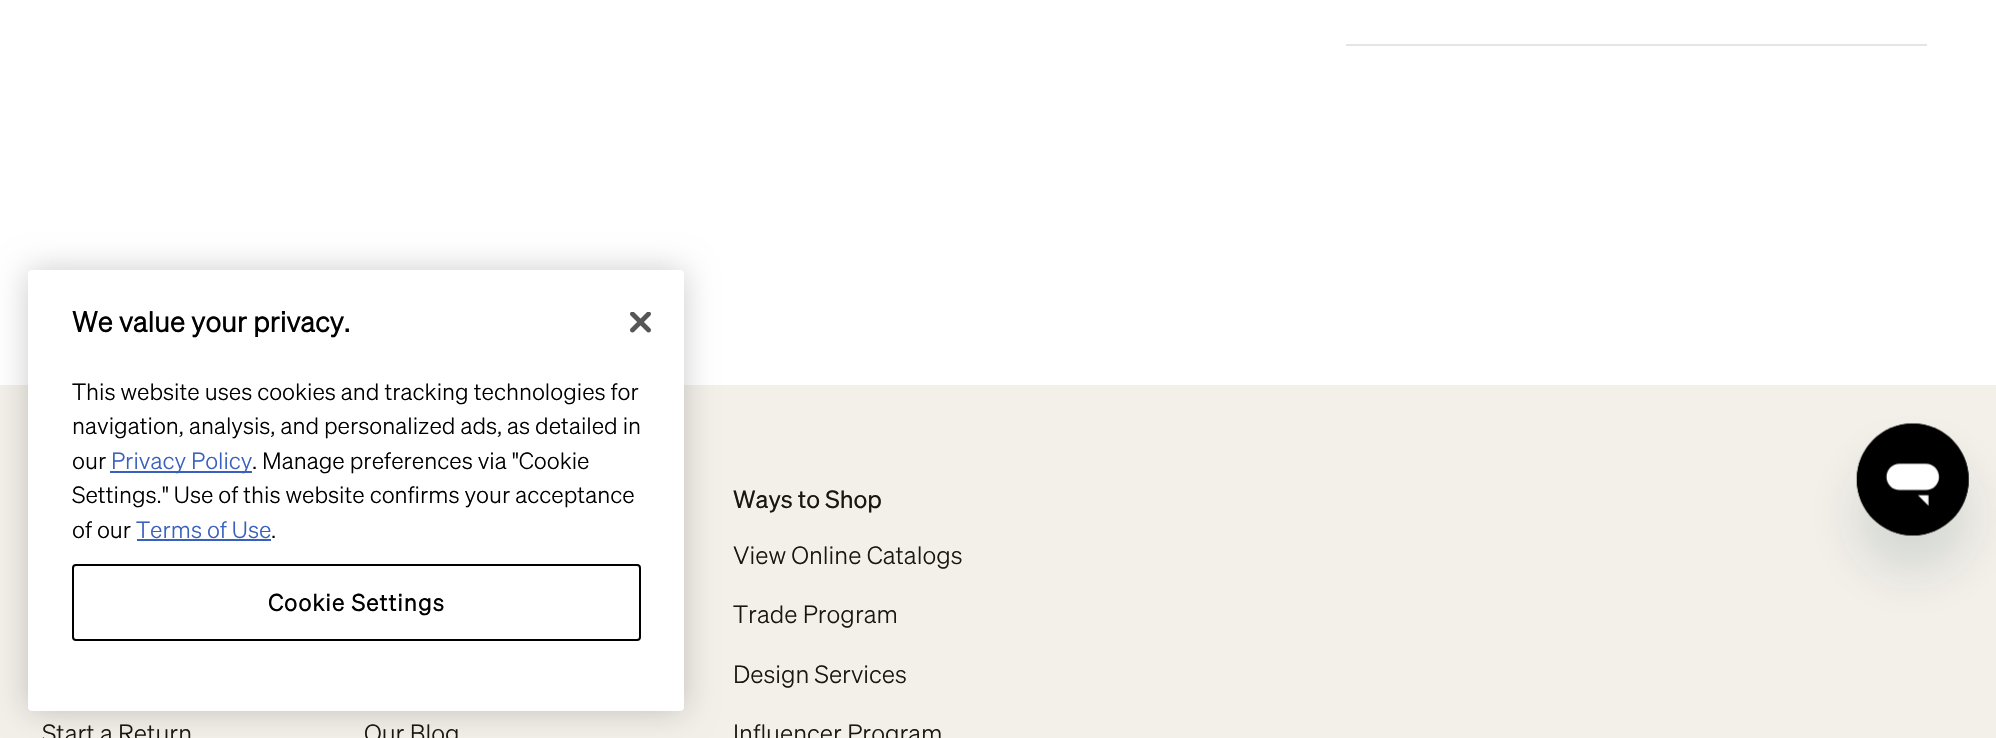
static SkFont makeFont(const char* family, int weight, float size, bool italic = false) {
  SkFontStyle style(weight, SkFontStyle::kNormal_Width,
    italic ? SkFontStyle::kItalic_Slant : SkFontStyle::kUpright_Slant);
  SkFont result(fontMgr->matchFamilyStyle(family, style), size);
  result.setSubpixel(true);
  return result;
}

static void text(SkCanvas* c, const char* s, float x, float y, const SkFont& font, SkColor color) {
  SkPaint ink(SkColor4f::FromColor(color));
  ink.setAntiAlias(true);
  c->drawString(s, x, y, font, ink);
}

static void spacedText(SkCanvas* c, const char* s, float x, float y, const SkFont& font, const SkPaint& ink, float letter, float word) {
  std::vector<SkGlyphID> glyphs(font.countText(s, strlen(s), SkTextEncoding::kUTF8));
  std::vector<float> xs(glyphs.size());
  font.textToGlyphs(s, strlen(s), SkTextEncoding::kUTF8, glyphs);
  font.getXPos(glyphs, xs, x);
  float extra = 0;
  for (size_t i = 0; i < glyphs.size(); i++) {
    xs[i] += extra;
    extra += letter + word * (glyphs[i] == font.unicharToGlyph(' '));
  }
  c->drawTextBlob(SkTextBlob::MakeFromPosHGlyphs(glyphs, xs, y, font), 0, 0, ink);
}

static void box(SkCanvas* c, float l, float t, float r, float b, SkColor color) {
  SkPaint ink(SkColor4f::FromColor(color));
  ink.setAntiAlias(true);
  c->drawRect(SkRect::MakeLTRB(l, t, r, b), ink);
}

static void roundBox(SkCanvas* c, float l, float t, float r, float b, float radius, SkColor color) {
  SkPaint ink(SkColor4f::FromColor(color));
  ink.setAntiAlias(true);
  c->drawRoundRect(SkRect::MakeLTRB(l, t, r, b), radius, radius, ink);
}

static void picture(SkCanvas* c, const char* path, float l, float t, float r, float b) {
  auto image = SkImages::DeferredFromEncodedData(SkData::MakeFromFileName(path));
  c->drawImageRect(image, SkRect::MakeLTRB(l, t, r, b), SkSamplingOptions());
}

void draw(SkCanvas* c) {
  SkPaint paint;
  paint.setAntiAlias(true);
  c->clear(0xffffffff);
  box(c, 1346, 44, 1927, 46, 0xffe5e5e5);
  box(c, 0, 385, 1996, 738, 0xfff3efe9);
  paint.setColor(0x33000000);
  paint.setMaskFilter(SkMaskFilter::MakeBlur(kNormal_SkBlurStyle, 16));
  c->drawRoundRect(SkRect::MakeLTRB(28, 270, 684, 711), 4, 4, paint);
  paint.setMaskFilter(nullptr);
  roundBox(c, 28, 270, 684, 711, 4, 0xffffffff);
  SkFont face1 = makeFont("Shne", 700, 28);
  text(c, "We value your privacy.", 72, 332, face1, 0xff000000);
  SkFont face2 = makeFont("Shne", 300, 23);
  text(c, "This website uses cookies and tracking technologies for", 72, 400, face2, 0xff000000);
  text(c, "navigation, analysis, and personalized ads, as detailed in", 72, 434, face2, 0xff000000);
  text(c, "our", 72, 469, face2, 0xff000000);
  box(c, 110, 471, 252, 473, 0xff3860be);
  text(c, "Privacy Policy", 111, 469, face2, 0xff3860be);
  text(c, ". Manage preferences via \"Cookie", 252, 469, face2, 0xff000000);
  text(c, "Settings.\" Use of this website confirms your acceptance", 72, 503, face2, 0xff000000);
  text(c, "of our", 72, 538, face2, 0xff000000);
  text(c, "Terms of Use", 136, 538, face2, 0xff3860be);
  box(c, 137, 539, 271, 541, 0xff3860be);
  text(c, ".", 271, 538, face2, 0xff000000);
  picture(c, "img_01.png", 630, 312, 651, 333);
  paint.setStyle(SkPaint::kStroke_Style);
  paint.setStrokeWidth(2);
  paint.setColor(0xff000000);
  c->drawRoundRect(SkRect::MakeLTRB(73, 565, 640, 640), 3, 3, paint);
  SkFont face3 = makeFont("Shne", 700, 23);
  paint.setStyle(SkPaint::kFill_Style);
  spacedText(c, "Cookie Settings", 268, 611, face3, paint, 1.1f, 0);
  paint.setColor(0x2617494d);
  paint.setMaskFilter(SkMaskFilter::MakeBlur(kNormal_SkBlurStyle, 26));
  c->drawRoundRect(SkRect::MakeLTRB(1857, 459, 1969, 571), 56, 56, paint);
  paint.setMaskFilter(nullptr);
  picture(c, "img_02.png", 1856, 423, 1969, 536);
  SkFont face4 = makeFont("Shne", 300, 24.5f);
  text(c, "Start a Return", 42, 742, face4, 0xff1a1713);
  text(c, "Our Blog", 364, 742, face4, 0xff1a1713);
  SkFont face5 = makeFont("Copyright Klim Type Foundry", 400, 24.5f);
  text(c, "Ways to Shop", 733, 508, face5, 0xff1a1713);
  text(c, "View Online Catalogs", 733, 564, face4, 0xff1a1713);
  text(c, "Trade Program", 733, 623, face4, 0xff1a1713);
  text(c, "Design Services", 733, 683, face4, 0xff1a1713);
  text(c, "Influencer Program", 733, 742, face4, 0xff1a1713);
}
